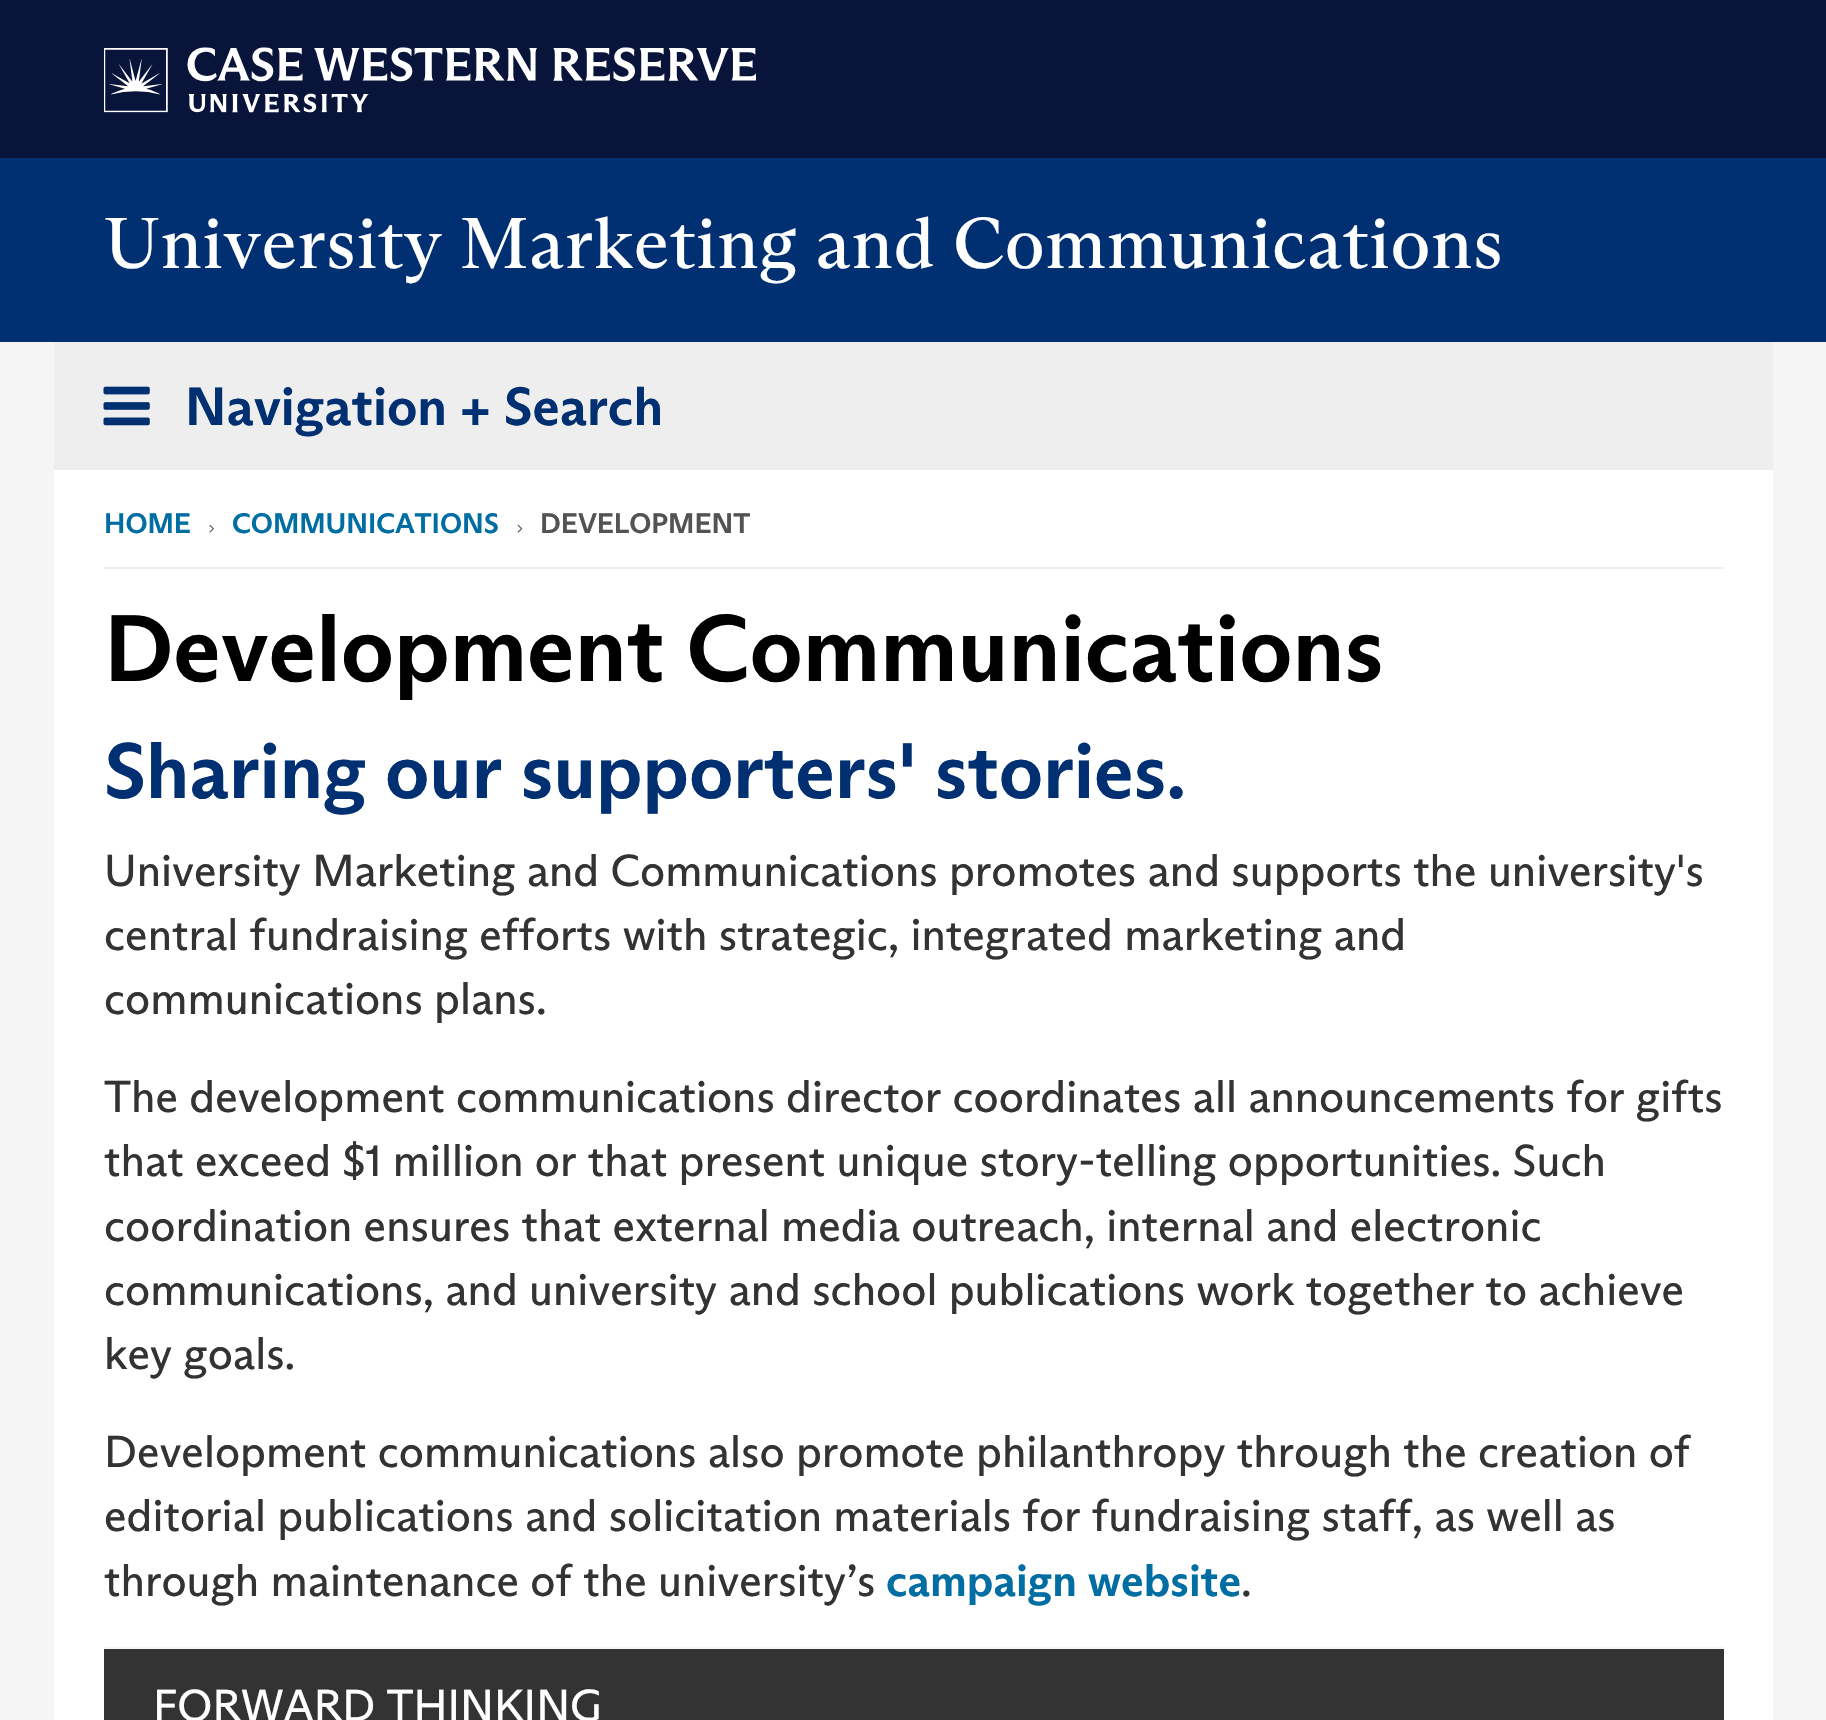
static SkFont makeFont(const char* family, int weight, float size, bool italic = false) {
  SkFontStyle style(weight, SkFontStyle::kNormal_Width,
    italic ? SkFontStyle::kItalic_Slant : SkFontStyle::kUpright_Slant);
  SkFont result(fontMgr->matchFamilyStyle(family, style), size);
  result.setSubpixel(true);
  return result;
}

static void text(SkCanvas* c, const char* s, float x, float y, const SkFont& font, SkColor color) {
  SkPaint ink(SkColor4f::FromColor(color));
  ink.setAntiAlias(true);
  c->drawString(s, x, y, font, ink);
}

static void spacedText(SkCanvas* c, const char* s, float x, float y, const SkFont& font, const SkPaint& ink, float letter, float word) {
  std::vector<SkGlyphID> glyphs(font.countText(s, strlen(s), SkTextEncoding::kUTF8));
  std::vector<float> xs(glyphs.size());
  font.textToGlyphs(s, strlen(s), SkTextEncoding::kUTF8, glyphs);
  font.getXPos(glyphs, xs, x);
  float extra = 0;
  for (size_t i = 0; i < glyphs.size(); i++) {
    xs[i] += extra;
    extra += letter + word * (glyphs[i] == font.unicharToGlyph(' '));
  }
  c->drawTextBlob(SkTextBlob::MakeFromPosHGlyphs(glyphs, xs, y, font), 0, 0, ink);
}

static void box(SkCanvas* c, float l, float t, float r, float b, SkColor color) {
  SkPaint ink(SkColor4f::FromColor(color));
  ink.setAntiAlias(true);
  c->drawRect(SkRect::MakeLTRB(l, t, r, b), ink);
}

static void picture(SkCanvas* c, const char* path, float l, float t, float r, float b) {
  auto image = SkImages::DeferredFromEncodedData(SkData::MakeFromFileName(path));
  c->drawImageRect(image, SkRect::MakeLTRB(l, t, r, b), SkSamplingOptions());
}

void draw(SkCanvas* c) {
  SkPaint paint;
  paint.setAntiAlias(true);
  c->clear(0xfff5f5f5);
  box(c, 0, 0, 1826, 158, 0xff09143a);
  picture(c, "img_01.png", 104, 47, 756, 113);
  box(c, 0, 158, 1826, 342, 0xff003071);
  SkFont face1 = makeFont("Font", 400, 72);
  paint.setColor(0xffffffff);
  spacedText(c, "University Marketing and Communications", 104, 268, face1, paint, 0.7f, 0);
  box(c, 54, 342, 1773, 470, 0xffeeeeee);
  picture(c, "img_02.png", 103, 386, 150, 426);
  SkFont face2 = makeFont("Font", 700, 54);
  text(c, "Navigation + Search", 185, 425, face2, 0xff003071);
  box(c, 54, 470, 1773, 1720, 0xffffffff);
  box(c, 104, 567, 1724, 569, 0xffeeeeee);
  SkFont face3 = makeFont("Font", 700, 28.25f);
  text(c, "HOME", 104, 533, face3, 0xff006da3);
  picture(c, "img_03.png", 209, 524, 214, 533);
  text(c, "COMMUNICATIONS", 232, 533, face3, 0xff006da3);
  picture(c, "img_04.png", 517, 524, 523, 533);
  text(c, "DEVELOPMENT", 540, 533, face3, 0xff535353);
  SkFont face4 = makeFont("Font", 700, 94.5f);
  text(c, "Development Communications", 104, 681, face4, 0xff000000);
  SkFont face5 = makeFont("Font", 700, 78.75f);
  text(c, "Sharing our supporters' stories.", 104, 798, face5, 0xff003071);
  SkFont face6 = makeFont("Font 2", 400, 45);
  text(c, "University Marketing and Communications promotes and supports the university's", 104, 886, face6, 0xff333333);
  text(c, "central fundraising efforts with strategic, integrated marketing and", 104, 950, face6, 0xff333333);
  text(c, "communications plans.", 104, 1014, face6, 0xff333333);
  text(c, "The development communications director coordinates all announcements for gifts", 104, 1112, face6, 0xff333333);
  text(c, "that exceed $1 million or that present unique story-telling opportunities. Such", 104, 1176, face6, 0xff333333);
  text(c, "coordination ensures that external media outreach, internal and electronic", 104, 1241, face6, 0xff333333);
  text(c, "communications, and university and school publications work together to achieve", 104, 1305, face6, 0xff333333);
  text(c, "key goals.", 104, 1369, face6, 0xff333333);
  text(c, "Development communications also promote philanthropy through the creation of", 104, 1467, face6, 0xff333333);
  text(c, "editorial publications and solicitation materials for fundraising staff, as well as", 104, 1531, face6, 0xff333333);
  text(c, "through maintenance of the university’s", 104, 1596, face6, 0xff333333);
  SkFont face7 = makeFont("Font", 700, 45);
  text(c, "campaign website", 886, 1596, face7, 0xff006da3);
  text(c, ".", 1241, 1596, face6, 0xff333333);
  box(c, 104, 1647, 1724, 1649, 0xfff5f5f5);
  box(c, 104, 1649, 1724, 1720, 0xff333333);
  text(c, "FORWARD THINKING", 153, 1721, face6, 0xffffffff);
}
